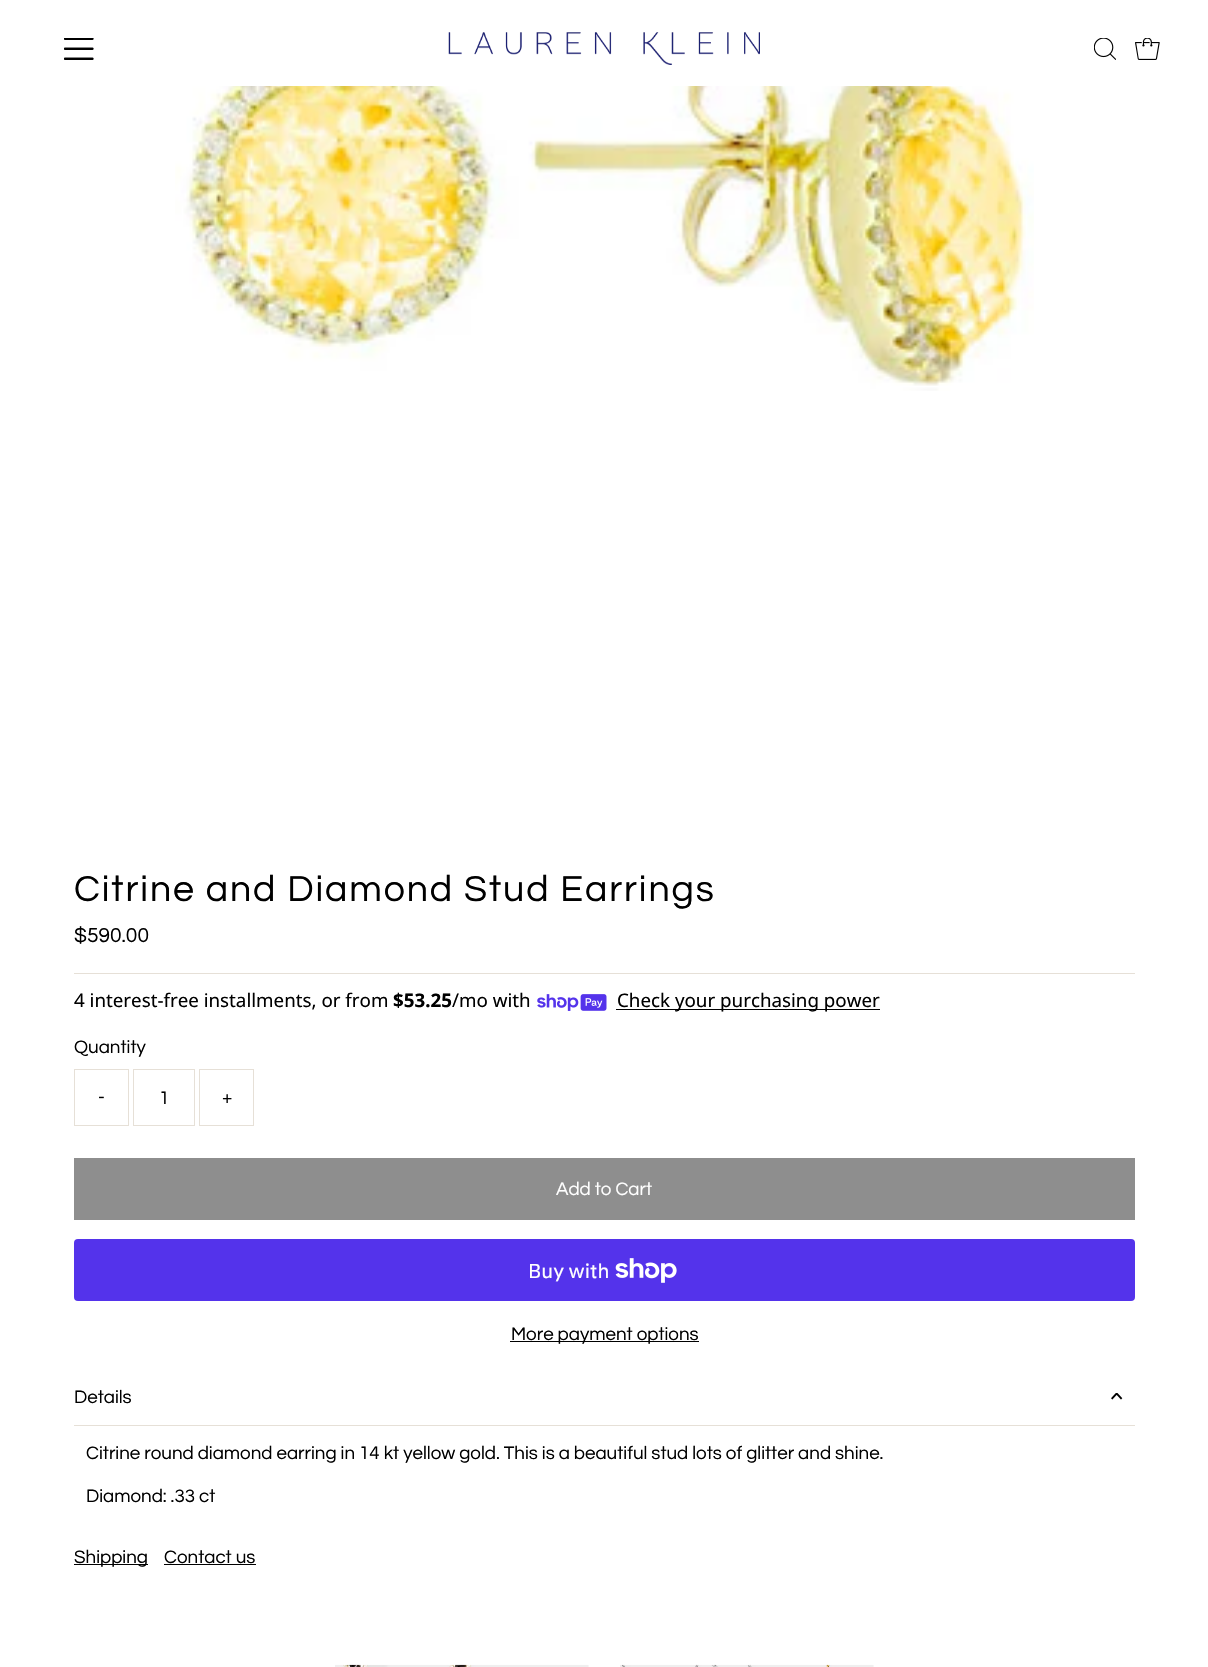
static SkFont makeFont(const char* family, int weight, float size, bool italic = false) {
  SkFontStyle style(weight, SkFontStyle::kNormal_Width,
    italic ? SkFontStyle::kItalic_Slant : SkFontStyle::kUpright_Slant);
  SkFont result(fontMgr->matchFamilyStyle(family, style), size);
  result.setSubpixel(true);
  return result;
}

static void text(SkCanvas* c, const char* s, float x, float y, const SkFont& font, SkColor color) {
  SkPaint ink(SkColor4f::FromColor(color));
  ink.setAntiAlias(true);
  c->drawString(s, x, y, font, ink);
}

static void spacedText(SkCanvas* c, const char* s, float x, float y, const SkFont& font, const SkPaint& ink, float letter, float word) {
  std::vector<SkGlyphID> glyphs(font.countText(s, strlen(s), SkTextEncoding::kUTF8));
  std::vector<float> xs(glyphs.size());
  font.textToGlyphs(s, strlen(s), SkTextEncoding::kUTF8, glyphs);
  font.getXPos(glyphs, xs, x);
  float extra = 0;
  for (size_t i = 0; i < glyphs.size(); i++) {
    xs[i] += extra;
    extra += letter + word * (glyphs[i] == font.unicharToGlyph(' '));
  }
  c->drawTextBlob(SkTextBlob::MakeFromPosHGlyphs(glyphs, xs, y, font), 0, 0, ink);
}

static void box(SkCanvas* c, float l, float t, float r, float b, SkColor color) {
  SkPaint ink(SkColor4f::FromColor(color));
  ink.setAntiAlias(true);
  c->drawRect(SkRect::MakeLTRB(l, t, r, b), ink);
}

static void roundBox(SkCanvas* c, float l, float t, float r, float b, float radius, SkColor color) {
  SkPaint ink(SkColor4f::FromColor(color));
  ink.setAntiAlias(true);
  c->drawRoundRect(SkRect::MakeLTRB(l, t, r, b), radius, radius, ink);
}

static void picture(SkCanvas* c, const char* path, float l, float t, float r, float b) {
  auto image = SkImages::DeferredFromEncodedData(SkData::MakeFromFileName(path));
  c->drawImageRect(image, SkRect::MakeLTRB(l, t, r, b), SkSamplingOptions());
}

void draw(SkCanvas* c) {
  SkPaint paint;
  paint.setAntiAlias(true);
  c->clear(0xffffffff);
  picture(c, "img_01.png", 64, 38, 94, 60);
  picture(c, "img_02.png", 448, 32, 760, 65);
  picture(c, "img_03.png", 1094, 38, 1116, 60);
  picture(c, "img_04.png", 1135, 38, 1160, 60);
  picture(c, "img_05.png", 175, 86, 1034, 391);
  SkFont face1 = makeFont("Questrial", 400, 37.5f);
  paint.setColor(0xff000000);
  spacedText(c, "Citrine and Diamond Stud Earrings", 74, 901, face1, paint, 1.9f, 0);
  box(c, 74, 973, 1135, 974, 0xffe6e0d7);
  SkFont face2 = makeFont("Questrial", 400, 21);
  text(c, "$590.00", 74, 942, face2, 0xff000000);
  SkFont face3 = makeFont("Noto Sans", 400, 18.75f);
  text(c, "4 interest-free installments, or from", 74, 1007, face3, 0xff000000);
  SkFont face4 = makeFont("Noto Sans", 700, 18.75f);
  text(c, "$53.25", 393, 1007, face4, 0xff000000);
  text(c, "/mo with", 452, 1007, face3, 0xff000000);
  picture(c, "img_06.png", 537, 994, 607, 1011);
  box(c, 616, 1009, 880, 1010, 0xff000000);
  text(c, "Check your purchasing power", 617, 1007, face3, 0xff000000);
  SkFont face5 = makeFont("Questrial", 400, 18.75f);
  text(c, "Quantity", 74, 1053, face5, 0xff000000);
  paint.setStyle(SkPaint::kStroke_Style);
  paint.setStrokeWidth(1);
  paint.setColor(0xffe6e0d7);
  c->drawRect(SkRect::MakeLTRB(74.5f, 1069.5f, 128.5f, 1125.5f), paint);
  text(c, "-", 98, 1103, face5, 0xff000000);
  c->drawRect(SkRect::MakeLTRB(133.5f, 1069.5f, 194.5f, 1125.5f), paint);
  text(c, "1", 159, 1104, face5, 0xff000000);
  c->drawRect(SkRect::MakeLTRB(199.5f, 1069.5f, 253.5f, 1125.5f), paint);
  text(c, "+", 222, 1103, face5, 0xff000000);
  box(c, 74, 1158, 1135, 1220, 0xff8e8e8e);
  text(c, "Add to Cart", 556, 1195, face5, 0xffffffff);
  roundBox(c, 74, 1239, 1135, 1301, 4, 0xff5433eb);
  SkFont face6 = makeFont("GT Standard", 400, 20);
  text(c, "Buy with", 528, 1278, face6, 0xffffffff);
  picture(c, "img_07.png", 615, 1258, 677, 1283);
  box(c, 510, 1341, 699, 1342, 0xff000000);
  text(c, "More payment options", 511, 1340, face5, 0xff000000);
  box(c, 74, 1425, 1135, 1426, 0xffe6e0d7);
  text(c, "Details", 74, 1403, face5, 0xff000000);
  picture(c, "img_08.png", 1111, 1393, 1123, 1400);
  text(c, "Citrine round diamond earring in 14 kt yellow gold. This is a beautiful stud lots of glitter and shine.", 86, 1459, face5, 0xff000000);
  text(c, "Diamond: .33 ct", 86, 1502, face5, 0xff000000);
  box(c, 74, 1564, 148, 1565, 0xff000000);
  text(c, "Shipping", 74, 1563, face5, 0xff000000);
  text(c, "Contact us", 164, 1563, face5, 0xff000000);
  box(c, 164, 1564, 256, 1565, 0xff000000);
  picture(c, "img_09.png", 335, 1664, 589, 1667);
  picture(c, "img_10.png", 620, 1664, 874, 1667);
}
